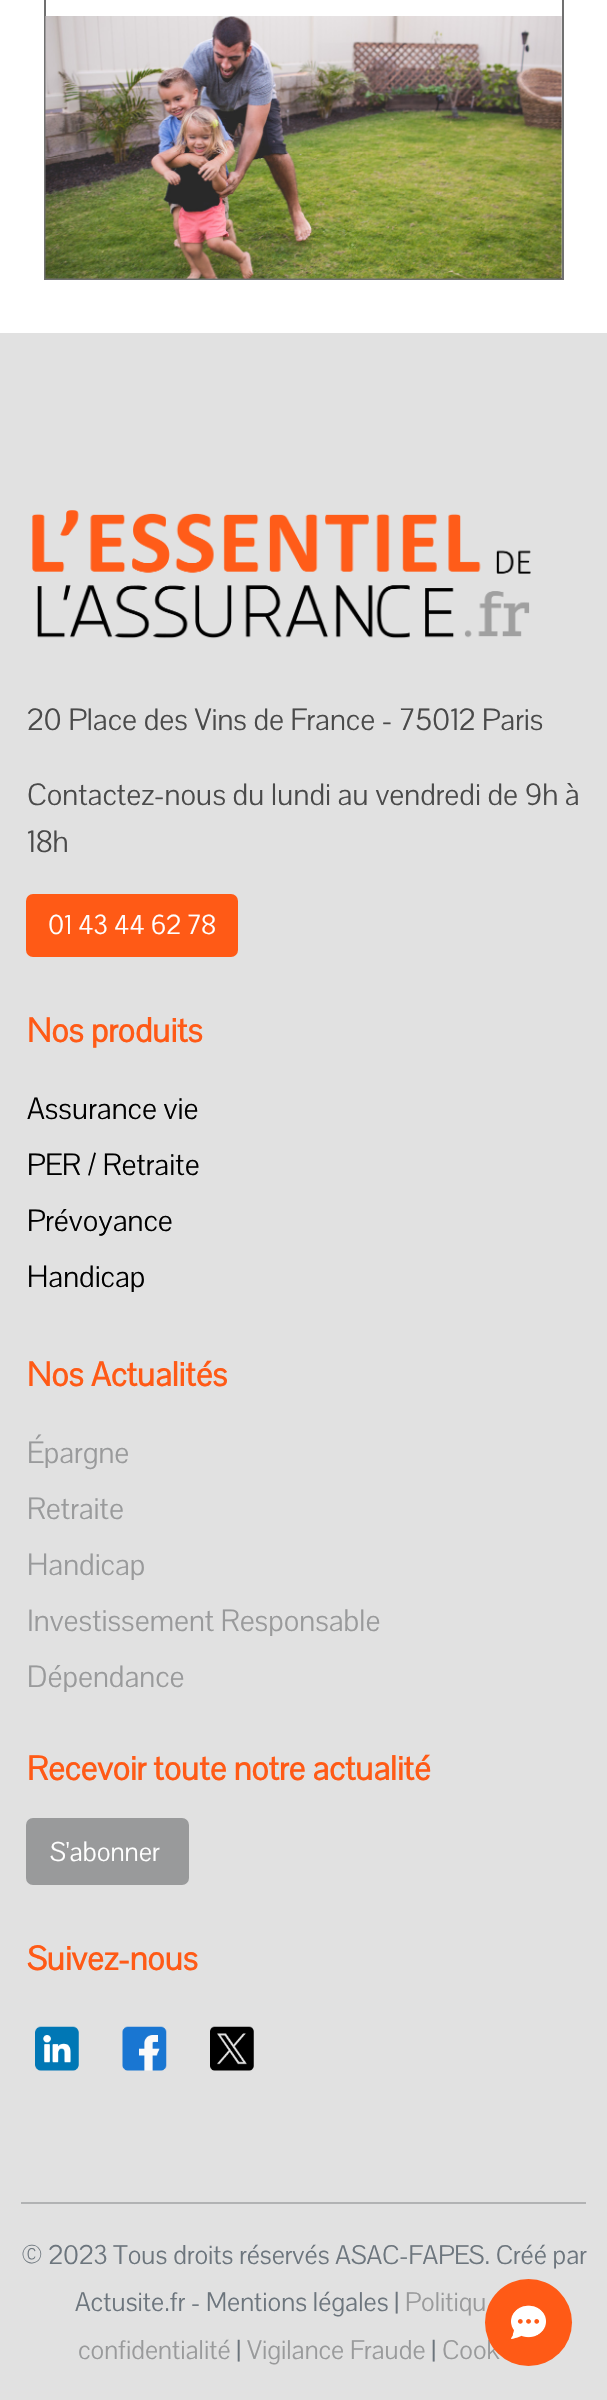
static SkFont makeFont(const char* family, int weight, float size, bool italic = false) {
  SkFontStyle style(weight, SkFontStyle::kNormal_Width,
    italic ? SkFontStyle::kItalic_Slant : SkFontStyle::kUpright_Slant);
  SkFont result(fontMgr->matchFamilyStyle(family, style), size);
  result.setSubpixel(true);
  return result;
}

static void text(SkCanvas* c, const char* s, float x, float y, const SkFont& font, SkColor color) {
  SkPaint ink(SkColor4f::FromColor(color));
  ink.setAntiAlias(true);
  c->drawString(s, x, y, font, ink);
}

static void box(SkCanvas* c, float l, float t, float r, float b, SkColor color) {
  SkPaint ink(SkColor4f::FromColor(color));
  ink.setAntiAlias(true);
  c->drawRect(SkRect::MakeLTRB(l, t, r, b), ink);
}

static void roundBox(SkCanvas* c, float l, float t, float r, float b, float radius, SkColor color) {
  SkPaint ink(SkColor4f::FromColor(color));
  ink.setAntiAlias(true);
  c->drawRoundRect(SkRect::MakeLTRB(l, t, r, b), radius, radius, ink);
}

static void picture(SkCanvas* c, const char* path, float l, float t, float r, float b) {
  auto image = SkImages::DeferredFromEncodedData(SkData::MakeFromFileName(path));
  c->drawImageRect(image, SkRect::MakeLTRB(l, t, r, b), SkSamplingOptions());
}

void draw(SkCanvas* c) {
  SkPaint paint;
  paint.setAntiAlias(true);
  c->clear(0xffffffff);
  paint.setStyle(SkPaint::kStroke_Style);
  paint.setStrokeWidth(2);
  paint.setColor(0xff707070);
  c->drawRect(SkRect::MakeLTRB(45, -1, 563, 279), paint);
  picture(c, "img_01.png", 45, 16, 562, 279);
  box(c, 0, 333, 607, 2400, 0xffe1e1e1);
  picture(c, "img_02.png", 32, 510, 531, 639);
  SkFont face1 = makeFont("Pavanam", 400, 31.5f);
  text(c, "20 Place des Vins de France - 75012 Paris", 27, 730, face1, 0xff4a4a4a);
  text(c, "Contactez-nous du lundi au vendredi de 9h à", 27, 805, face1, 0xff4a4a4a);
  text(c, "18h", 27, 852, face1, 0xff4a4a4a);
  roundBox(c, 26, 894, 238, 957, 7, 0xffff5a16);
  SkFont face2 = makeFont("Pavanam", 400, 28);
  text(c, "01 43 44 62 78", 48, 934, face2, 0xffffffff);
  SkFont face3 = makeFont("Pavanam", 700, 35);
  text(c, "Nos produits", 27, 1042, face3, 0xffff5a16);
  text(c, "Assurance vie", 27, 1119, face1, 0xff000000);
  text(c, "PER / Retraite", 27, 1175, face1, 0xff000000);
  text(c, "Prévoyance", 27, 1231, face1, 0xff000000);
  text(c, "Handicap", 27, 1287, face1, 0xff000000);
  text(c, "Nos Actualités", 27, 1386, face3, 0xffff5a16);
  text(c, "Épargne", 27, 1463, face1, 0xff999a9b);
  text(c, "Retraite", 27, 1519, face1, 0xff999a9b);
  text(c, "Handicap", 27, 1575, face1, 0xff999a9b);
  text(c, "Investissement Responsable", 27, 1631, face1, 0xff999a9b);
  text(c, "Dépendance", 27, 1687, face1, 0xff999a9b);
  text(c, "Recevoir toute notre actualité", 27, 1780, face3, 0xffff5a16);
  paint.setStyle(SkPaint::kFill_Style);
  paint.setColor(0xff999a9b);
  c->drawRoundRect(SkRect::MakeLTRB(27, 1819, 188, 1884), 6, 6, paint);
  paint.setStyle(SkPaint::kStroke_Style);
  c->drawRoundRect(SkRect::MakeLTRB(27, 1819, 188, 1884), 6, 6, paint);
  text(c, "S'abonner", 50, 1861, face2, 0xffffffff);
  text(c, "Suivez-nous", 27, 1970, face3, 0xffff5a16);
  picture(c, "img_03.png", 35, 2026, 79, 2071);
  picture(c, "img_04.png", 122, 2026, 167, 2071);
  picture(c, "img_05.png", 210, 2026, 254, 2071);
  box(c, 21, 2202, 586, 2204, 0xffb1b2b3);
  SkFont face4 = makeFont("Pavanam", 400, 27.6f);
  text(c, "© 2023 Tous droits réservés ASAC-FAPES. Créé par", 21, 2264, face4, 0xff6c757d);
  text(c, "Actusite.fr - Mentions légales", 75, 2311, face4, 0xff6c757d);
  text(c, "|", 394, 2311, face4, 0xff6c757d);
  text(c, "Politiqu", 405, 2311, face4, 0xff999a9b);
  text(c, "confidentialité", 78, 2359, face4, 0xff999a9b);
  text(c, "|", 236, 2359, face4, 0xff6c757d);
  text(c, "Vigilance Fraude", 247, 2359, face4, 0xff999a9b);
  text(c, "|", 431, 2359, face4, 0xff6c757d);
  text(c, "Cook", 442, 2359, face4, 0xff999a9b);
  paint.setStyle(SkPaint::kFill_Style);
  paint.setColor(0xffff5a16);
  c->drawCircle(528.5f, 2322.5f, 43.5f, paint);
  picture(c, "img_06.png", 511, 2305, 546, 2339);
}
